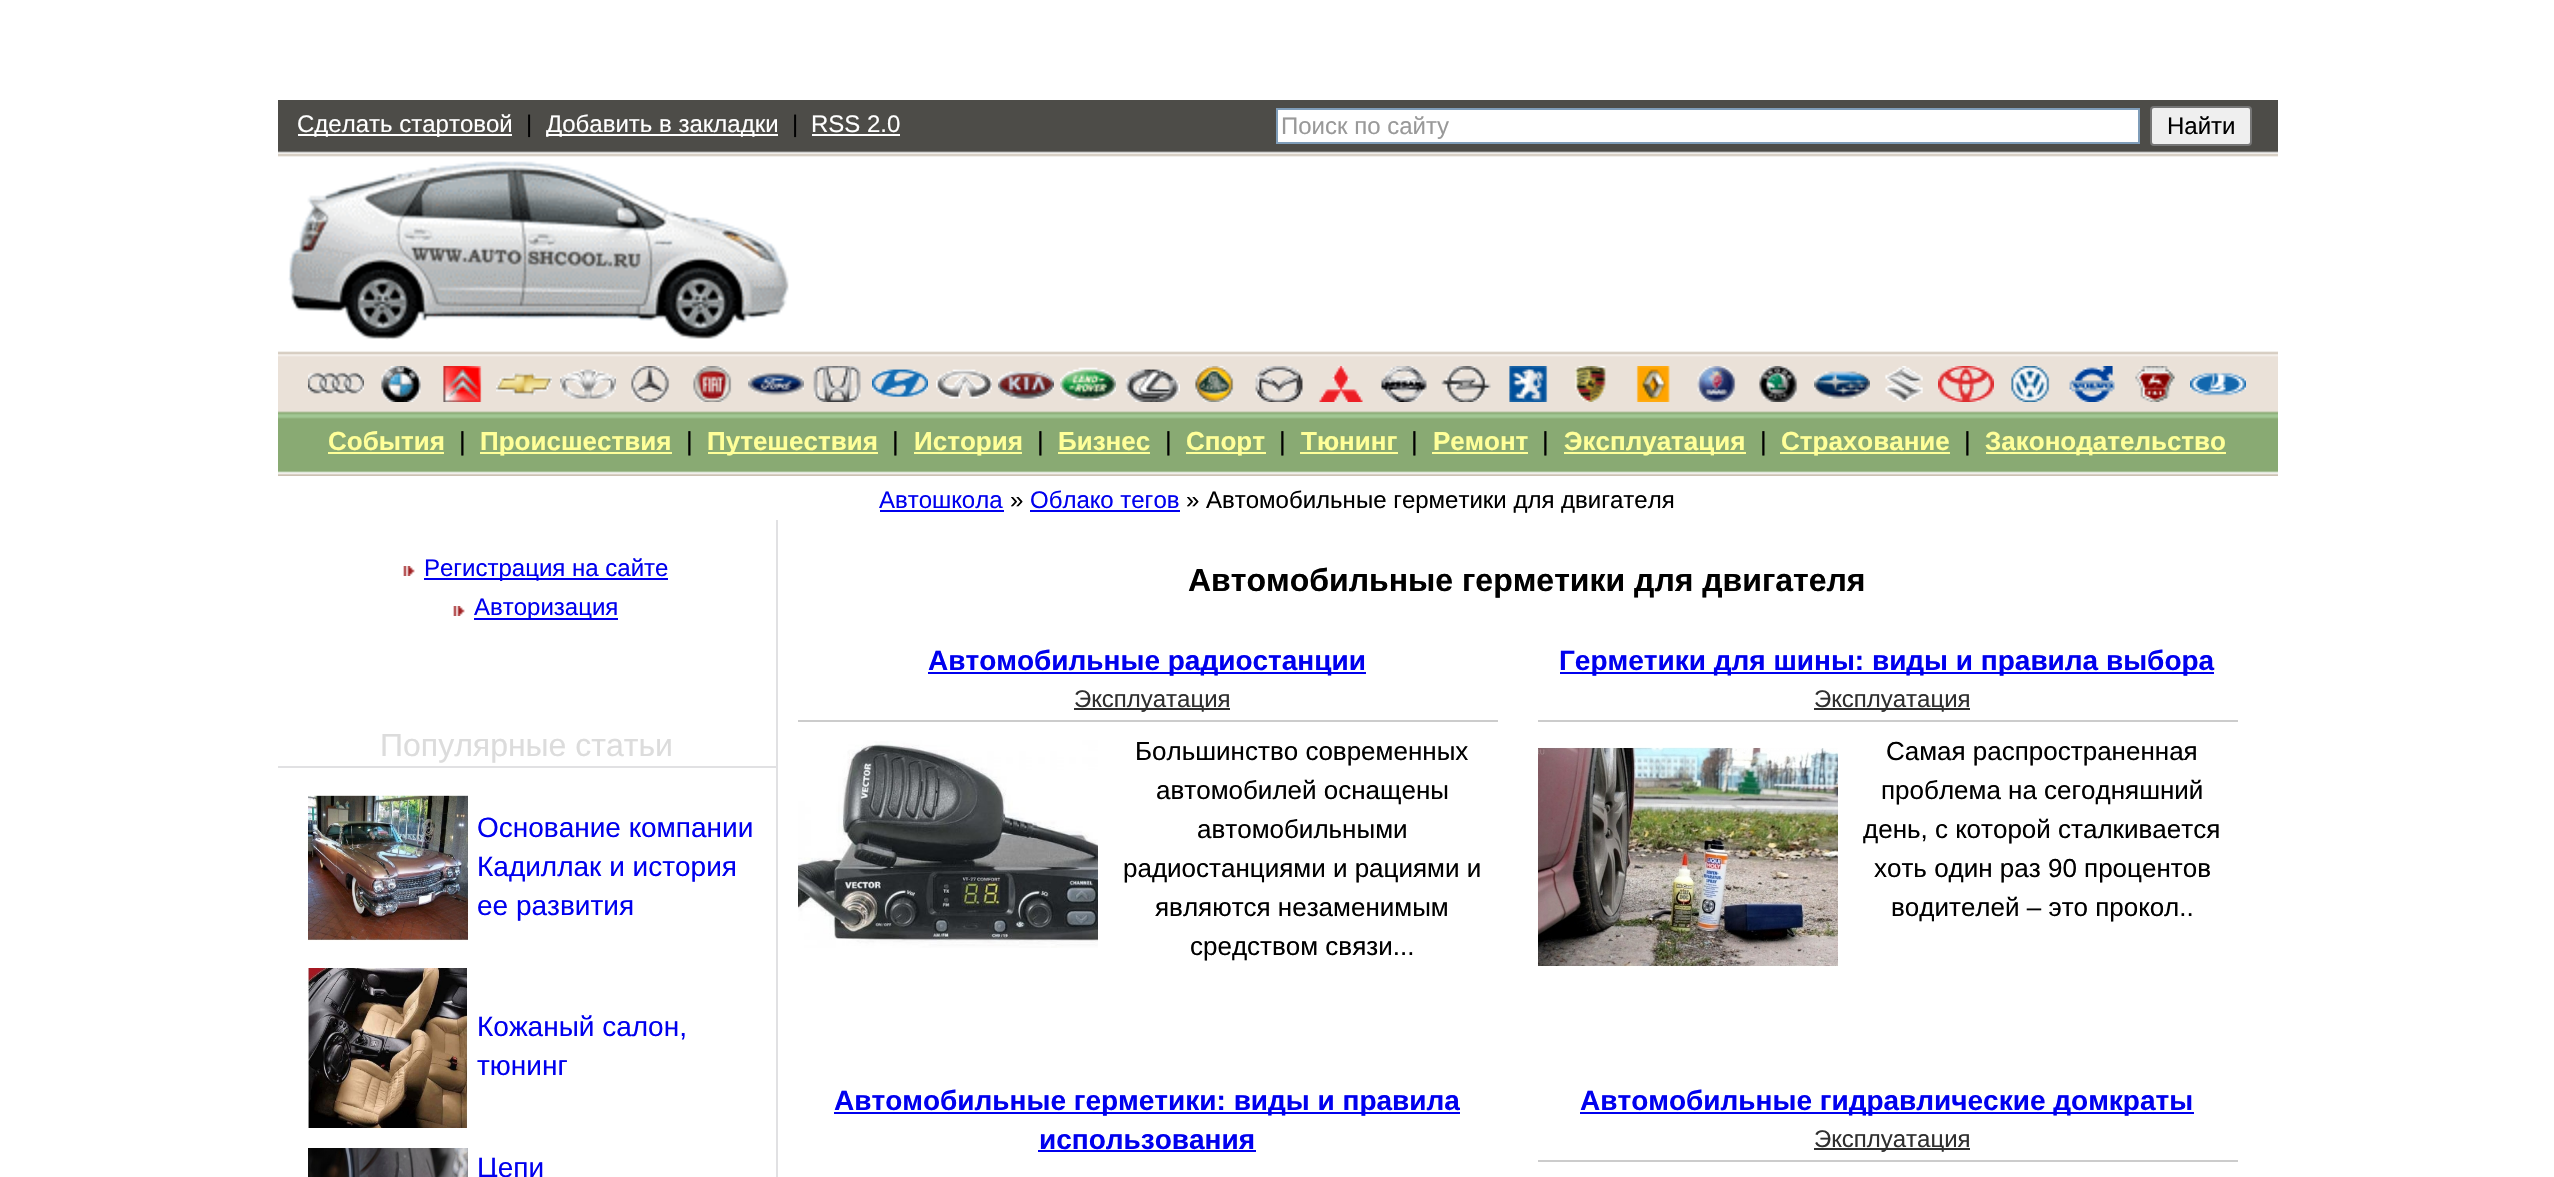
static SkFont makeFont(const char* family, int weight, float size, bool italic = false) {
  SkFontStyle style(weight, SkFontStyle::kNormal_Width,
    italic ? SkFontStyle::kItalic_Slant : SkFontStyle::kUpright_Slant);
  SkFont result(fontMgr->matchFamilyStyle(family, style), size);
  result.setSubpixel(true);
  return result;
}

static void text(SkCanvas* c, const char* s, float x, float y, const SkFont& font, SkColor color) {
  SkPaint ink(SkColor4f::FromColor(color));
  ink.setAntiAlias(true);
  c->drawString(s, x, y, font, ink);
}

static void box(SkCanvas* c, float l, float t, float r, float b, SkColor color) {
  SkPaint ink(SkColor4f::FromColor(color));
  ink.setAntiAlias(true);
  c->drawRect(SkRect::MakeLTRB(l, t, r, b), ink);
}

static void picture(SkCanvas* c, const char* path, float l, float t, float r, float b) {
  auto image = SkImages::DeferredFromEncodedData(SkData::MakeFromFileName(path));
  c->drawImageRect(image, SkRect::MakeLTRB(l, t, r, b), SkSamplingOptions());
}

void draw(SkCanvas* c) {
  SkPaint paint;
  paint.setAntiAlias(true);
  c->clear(0xffffffff);
  picture(c, "img_01.png", 278, 100, 2278, 476);
  box(c, 298, 134, 512, 136, 0xffffffff);
  SkFont face1 = makeFont("Liberation Sans", 400, 24);
  text(c, "Сделать стартовой", 297, 132, face1, 0xffffffff);
  text(c, "|", 526, 132, face1, 0xff000000);
  box(c, 546, 134, 778, 136, 0xffffffff);
  text(c, "Добавить в закладки", 546, 132, face1, 0xffffffff);
  text(c, "|", 792, 132, face1, 0xff000000);
  text(c, "RSS 2.0", 811, 132, face1, 0xffffffff);
  box(c, 812, 134, 900, 136, 0xffffffff);
  paint.setColor(0xffffffff);
  c->drawRect(SkRect::MakeLTRB(1277, 109, 2139, 143), paint);
  paint.setStyle(SkPaint::kStroke_Style);
  paint.setStrokeWidth(2);
  paint.setColor(0xff7f9db9);
  c->drawRect(SkRect::MakeLTRB(1277, 109, 2139, 143), paint);
  text(c, "Поиск по сайту", 1281, 134, face1, 0xff999999);
  paint.setStyle(SkPaint::kFill_Style);
  paint.setColor(0xffefefef);
  c->drawRoundRect(SkRect::MakeLTRB(2151, 107, 2251, 145), 3, 3, paint);
  paint.setStyle(SkPaint::kStroke_Style);
  paint.setColor(0xff767676);
  c->drawRoundRect(SkRect::MakeLTRB(2151, 107, 2251, 145), 3, 3, paint);
  text(c, "Найти", 2167, 134, face1, 0xff000000);
  picture(c, "img_02.png", 288, 161, 789, 340);
  picture(c, "img_03.png", 308, 372, 364, 394);
  picture(c, "img_04.png", 381, 366, 421, 402);
  picture(c, "img_05.png", 443, 366, 482, 402);
  picture(c, "img_06.png", 496, 373, 552, 396);
  picture(c, "img_07.png", 560, 369, 616, 399);
  picture(c, "img_08.png", 631, 366, 670, 402);
  picture(c, "img_09.png", 693, 366, 732, 402);
  picture(c, "img_10.png", 748, 372, 804, 396);
  picture(c, "img_11.png", 813, 366, 861, 402);
  picture(c, "img_12.png", 872, 369, 928, 397);
  picture(c, "img_13.png", 936, 369, 992, 399);
  picture(c, "img_14.png", 998, 371, 1054, 399);
  picture(c, "img_15.png", 1060, 367, 1116, 401);
  picture(c, "img_16.png", 1125, 369, 1180, 402);
  picture(c, "img_17.png", 1195, 366, 1234, 402);
  picture(c, "img_18.png", 1255, 366, 1303, 402);
  picture(c, "img_19.png", 1319, 366, 1363, 402);
  picture(c, "img_20.png", 1381, 366, 1427, 402);
  picture(c, "img_21.png", 1441, 366, 1491, 402);
  picture(c, "img_22.png", 1509, 366, 1548, 402);
  picture(c, "img_23.png", 1574, 366, 1606, 402);
  picture(c, "img_24.png", 1636, 366, 1670, 402);
  picture(c, "img_25.png", 1697, 366, 1736, 402);
  picture(c, "img_26.png", 1759, 366, 1798, 402);
  picture(c, "img_27.png", 1814, 371, 1870, 399);
  picture(c, "img_28.png", 1885, 366, 1923, 402);
  picture(c, "img_29.png", 1938, 366, 1994, 402);
  picture(c, "img_30.png", 2011, 366, 2050, 402);
  picture(c, "img_31.png", 2069, 366, 2115, 402);
  picture(c, "img_32.png", 2135, 366, 2175, 402);
  picture(c, "img_33.png", 2190, 372, 2246, 396);
  SkFont face2 = makeFont("Liberation Sans", 700, 26);
  text(c, "События", 328, 450, face2, 0xffffff99);
  box(c, 328, 452, 444, 454, 0xffffff99);
  SkFont face3 = makeFont("Liberation Sans", 400, 26);
  text(c, "|", 459, 450, face3, 0xff000000);
  box(c, 480, 452, 672, 454, 0xffffff99);
  text(c, "Происшествия", 480, 450, face2, 0xffffff99);
  text(c, "|", 686, 450, face3, 0xff000000);
  box(c, 708, 452, 878, 454, 0xffffff99);
  text(c, "Путешествия", 707, 450, face2, 0xffffff99);
  text(c, "|", 892, 450, face3, 0xff000000);
  box(c, 914, 452, 1022, 454, 0xffffff99);
  text(c, "История", 914, 450, face2, 0xffffff99);
  text(c, "|", 1037, 450, face3, 0xff000000);
  text(c, "Бизнес", 1058, 450, face2, 0xffffff99);
  box(c, 1058, 452, 1150, 454, 0xffffff99);
  text(c, "|", 1165, 450, face3, 0xff000000);
  box(c, 1186, 452, 1266, 454, 0xffffff99);
  text(c, "Спорт", 1186, 450, face2, 0xffffff99);
  text(c, "|", 1279, 450, face3, 0xff000000);
  text(c, "Тюнинг", 1301, 450, face2, 0xffffff99);
  box(c, 1300, 452, 1398, 454, 0xffffff99);
  text(c, "|", 1411, 450, face3, 0xff000000);
  text(c, "Ремонт", 1433, 450, face2, 0xffffff99);
  box(c, 1432, 452, 1528, 454, 0xffffff99);
  text(c, "|", 1542, 450, face3, 0xff000000);
  box(c, 1564, 452, 1746, 454, 0xffffff99);
  text(c, "Эксплуатация", 1564, 450, face2, 0xffffff99);
  text(c, "|", 1760, 450, face3, 0xff000000);
  box(c, 1780, 452, 1950, 454, 0xffffff99);
  text(c, "Страхование", 1781, 450, face2, 0xffffff99);
  text(c, "|", 1964, 450, face3, 0xff000000);
  box(c, 1986, 452, 2226, 454, 0xffffff99);
  text(c, "Законодательство", 1985, 450, face2, 0xffffff99);
  text(c, "Автошкола", 879, 508, face1, 0xff0000ee);
  box(c, 880, 510, 1004, 512, 0xff0000ee);
  text(c, "»", 1010, 508, face1, 0xff000000);
  text(c, "Облако тегов", 1030, 508, face1, 0xff0000ee);
  box(c, 1030, 510, 1180, 512, 0xff0000ee);
  text(c, "» Автомобильные герметики для двигателя", 1186, 508, face1, 0xff000000);
  picture(c, "img_34.png", 403, 566, 415, 576);
  box(c, 424, 578, 668, 580, 0xff0000ee);
  text(c, "Регистрация на сайте", 424, 576, face1, 0xff0000ee);
  picture(c, "img_34.png", 453, 606, 465, 616);
  box(c, 474, 618, 618, 620, 0xff0000ee);
  text(c, "Авторизация", 474, 615, face1, 0xff0000ee);
  box(c, 278, 766, 776, 768, 0xffe1e1e3);
  SkFont face4 = makeFont("Liberation Sans", 400, 32);
  text(c, "Популярные статьи", 380, 756, face4, 0xffdcdcdc);
  picture(c, "img_35.png", 308, 795, 468, 941);
  SkFont face5 = makeFont("Liberation Sans", 400, 28);
  text(c, "Основание компании", 477, 837, face5, 0xff0000ee);
  text(c, "Кадиллак и история", 477, 876, face5, 0xff0000ee);
  text(c, "ее развития", 477, 915, face5, 0xff0000ee);
  picture(c, "img_36.png", 308, 968, 468, 1128);
  text(c, "Кожаный салон,", 477, 1036, face5, 0xff0000ee);
  text(c, "тюнинг", 477, 1075, face5, 0xff0000ee);
  picture(c, "img_37.png", 308, 1148, 468, 1177);
  text(c, "Цепи", 477, 1177, face5, 0xff0000ee);
  box(c, 776, 520, 778, 1177, 0xffe1e1e3);
  SkFont face6 = makeFont("Liberation Sans", 700, 32);
  text(c, "Автомобильные герметики для двигателя", 1188, 591, face6, 0xff000000);
  box(c, 928, 672, 1366, 674, 0xff0000ee);
  SkFont face7 = makeFont("Liberation Sans", 700, 28);
  text(c, "Автомобильные радиостанции", 928, 670, face7, 0xff0000ee);
  box(c, 798, 720, 1498, 722, 0xffcccccc);
  box(c, 1074, 708, 1230, 710, 0xff2f2f2f);
  text(c, "Эксплуатация", 1074, 707, face1, 0xff2f2f2f);
  picture(c, "img_38.png", 798, 740, 1098, 948);
  text(c, "Большинство современных", 1135, 760, face3, 0xff000000);
  text(c, "автомобилей оснащены", 1156, 799, face3, 0xff000000);
  text(c, "автомобильными", 1197, 838, face3, 0xff000000);
  text(c, "радиостанциями и рациями и", 1123, 877, face3, 0xff000000);
  text(c, "являются незаменимым", 1155, 916, face3, 0xff000000);
  text(c, "средством связи...", 1190, 955, face3, 0xff000000);
  box(c, 1560, 672, 2214, 674, 0xff0000ee);
  text(c, "Герметики для шины: виды и правила выбора", 1559, 670, face7, 0xff0000ee);
  box(c, 1538, 720, 2238, 722, 0xffcccccc);
  box(c, 1814, 708, 1970, 710, 0xff2f2f2f);
  text(c, "Эксплуатация", 1814, 707, face1, 0xff2f2f2f);
  picture(c, "img_39.png", 1538, 747, 1838, 967);
  text(c, "Самая распространенная", 1886, 760, face3, 0xff000000);
  text(c, "проблема на сегодняшний", 1881, 799, face3, 0xff000000);
  text(c, "день, с которой сталкивается", 1863, 838, face3, 0xff000000);
  text(c, "хоть один раз 90 процентов", 1874, 877, face3, 0xff000000);
  text(c, "водителей – это прокол..", 1891, 916, face3, 0xff000000);
  box(c, 834, 1112, 1460, 1114, 0xff0000ee);
  text(c, "Автомобильные герметики: виды и правила", 834, 1110, face7, 0xff0000ee);
  text(c, "использования", 1039, 1149, face7, 0xff0000ee);
  box(c, 1038, 1150, 1256, 1152, 0xff0000ee);
  box(c, 1580, 1112, 2194, 1114, 0xff0000ee);
  text(c, "Автомобильные гидравлические домкраты", 1580, 1110, face7, 0xff0000ee);
  box(c, 1538, 1160, 2238, 1162, 0xffcccccc);
  box(c, 1814, 1148, 1970, 1150, 0xff2f2f2f);
  text(c, "Эксплуатация", 1814, 1147, face1, 0xff2f2f2f);
}
